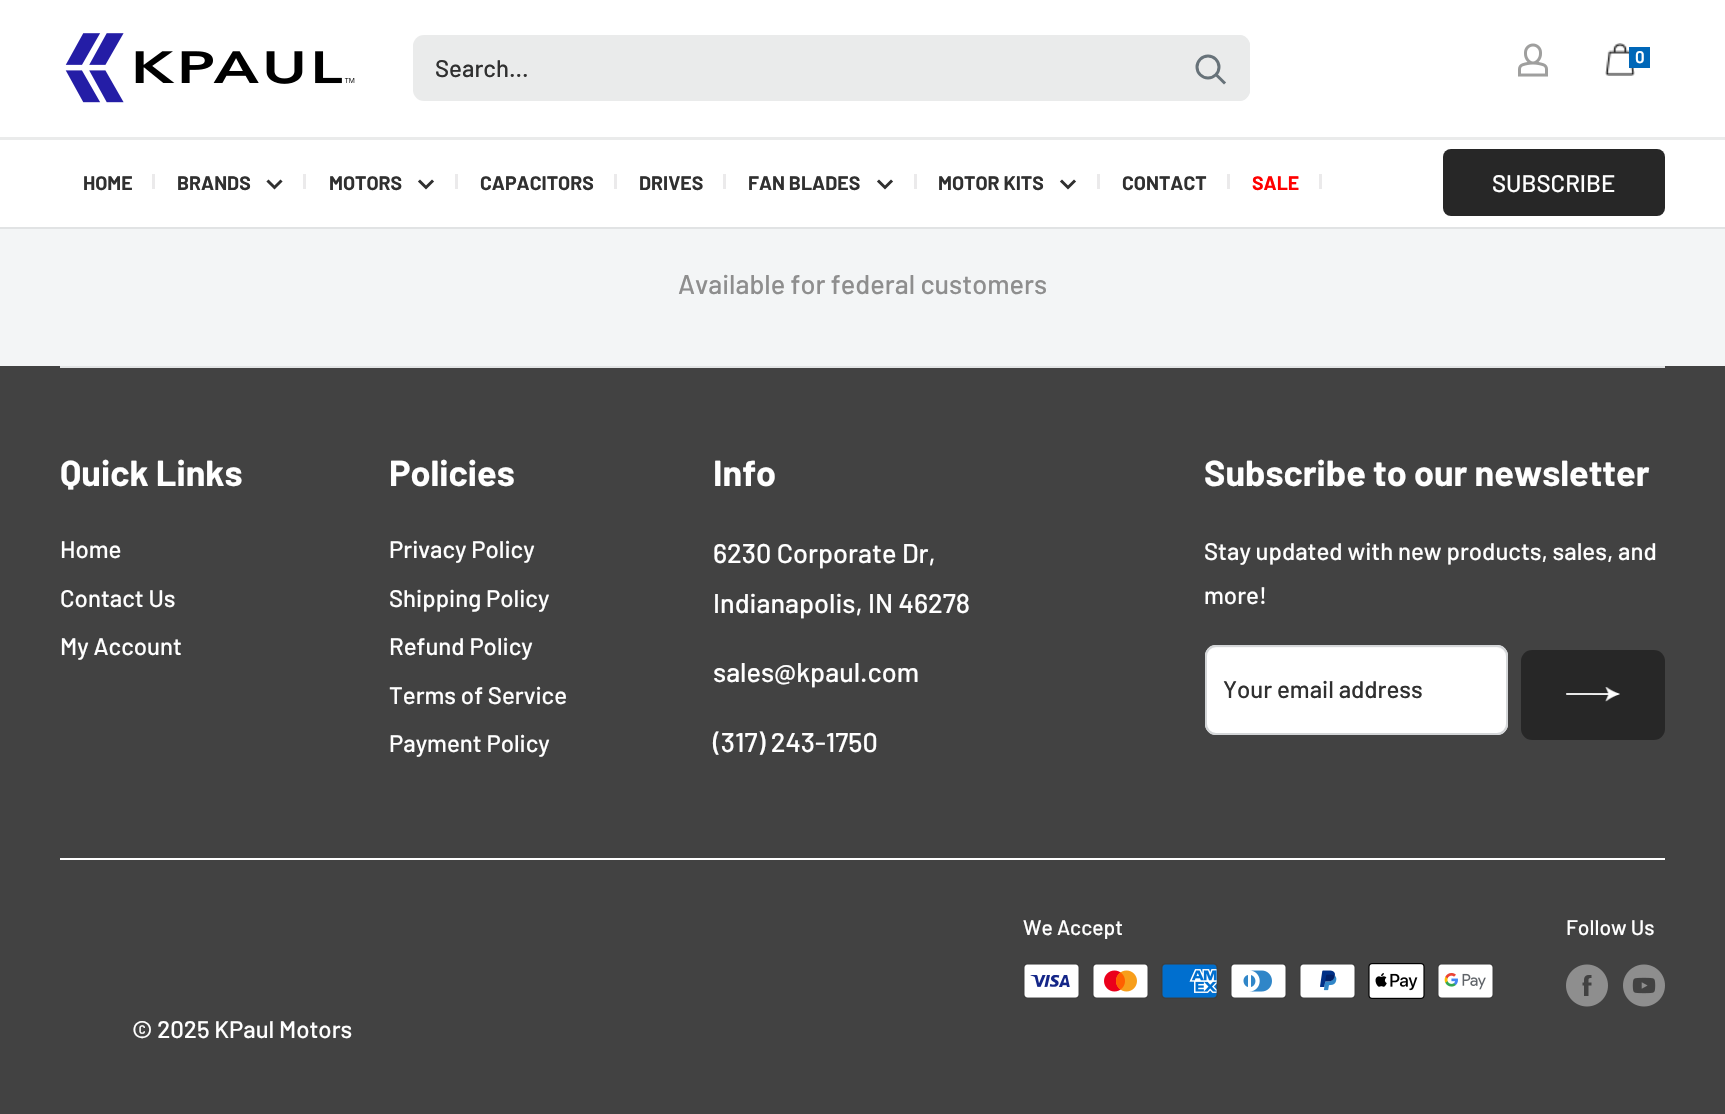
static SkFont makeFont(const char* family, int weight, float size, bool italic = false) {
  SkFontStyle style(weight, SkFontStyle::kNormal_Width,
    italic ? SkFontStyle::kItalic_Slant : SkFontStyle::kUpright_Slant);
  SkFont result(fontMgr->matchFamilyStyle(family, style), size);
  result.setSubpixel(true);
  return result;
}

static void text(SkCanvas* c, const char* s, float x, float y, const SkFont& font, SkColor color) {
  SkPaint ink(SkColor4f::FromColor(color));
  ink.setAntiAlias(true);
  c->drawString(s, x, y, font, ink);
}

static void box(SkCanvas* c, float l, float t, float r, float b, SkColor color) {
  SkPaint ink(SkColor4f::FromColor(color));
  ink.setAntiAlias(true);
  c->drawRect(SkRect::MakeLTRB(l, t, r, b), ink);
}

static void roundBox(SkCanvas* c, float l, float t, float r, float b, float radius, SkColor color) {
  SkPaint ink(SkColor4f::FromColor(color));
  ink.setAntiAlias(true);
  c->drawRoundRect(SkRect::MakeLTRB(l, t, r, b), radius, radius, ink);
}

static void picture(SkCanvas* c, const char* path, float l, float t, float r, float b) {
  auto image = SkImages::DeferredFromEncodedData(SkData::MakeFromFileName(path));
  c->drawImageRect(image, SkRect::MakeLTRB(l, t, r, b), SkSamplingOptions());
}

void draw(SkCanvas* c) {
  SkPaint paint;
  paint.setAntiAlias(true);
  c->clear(0xfff3f5f6);
  box(c, 0, 0, 1725, 137, 0xffffffff);
  picture(c, "img_01.png", 65, 33, 355, 103);
  picture(c, "img_02.png", 1518, 43, 1548, 77);
  picture(c, "img_03.png", 1605, 43, 1635, 76);
  box(c, 1629, 47, 1650, 68, 0xff0067b8);
  SkFont face1 = makeFont("Barlow", 600, 17);
  text(c, "0", 1635, 63, face1, 0xffffffff);
  roundBox(c, 413, 35, 1250, 101, 11, 0xffeaebeb);
  SkFont face2 = makeFont("Barlow", 500, 24);
  text(c, "Search...", 435, 77, face2, 0xff303030);
  roundBox(c, 1175, 35, 1250, 101, 11, 0xffeaebeb);
  paint.setStyle(SkPaint::kStroke_Style);
  paint.setStrokeWidth(3);
  paint.setStrokeCap(SkPaint::kSquare_Cap);
  paint.setColor(0xff677279);
  c->drawPath(SkPathBuilder().moveTo(1224, 82.5f).lineTo(1216.5f, 75).detach(), paint);
  paint.setStrokeCap(SkPaint::kButt_Cap);
  c->drawCircle(1208, 67, 11, paint);
  box(c, 0, 140, 1725, 227, 0xffffffff);
  box(c, 0, 137, 1725, 140, 0xffeaebeb);
  box(c, 0, 227, 1725, 229, 0xffe1e3e4);
  SkFont face3 = makeFont("Barlow", 700, 19.5f);
  text(c, "HOME", 83, 190, face3, 0xff303030);
  box(c, 152, 174, 155, 189, 0xffebeaeb);
  text(c, "BRANDS", 177, 190, face3, 0xff303030);
  paint.setStrokeCap(SkPaint::kSquare_Cap);
  paint.setColor(0xff303030);
  c->drawPath(SkPathBuilder().moveTo(280.5f, 181.5f).lineTo(274.5f, 187.5f).lineTo(268.5f, 181.5f).detach(), paint);
  box(c, 303, 174, 306, 189, 0xffebeaeb);
  text(c, "MOTORS", 329, 190, face3, 0xff303030);
  c->drawPath(SkPathBuilder().moveTo(432, 181.5f).lineTo(426, 187.5f).lineTo(420, 181.5f).detach(), paint);
  box(c, 455, 174, 458, 189, 0xffebeaeb);
  text(c, "CAPACITORS", 480, 190, face3, 0xff303030);
  box(c, 614, 174, 617, 189, 0xffebeaeb);
  text(c, "DRIVES", 639, 190, face3, 0xff303030);
  box(c, 723, 174, 726, 189, 0xffebeaeb);
  text(c, "FAN BLADES", 748, 190, face3, 0xff303030);
  c->drawPath(SkPathBuilder().moveTo(891, 181.5f).lineTo(885, 187.5f).lineTo(879, 181.5f).detach(), paint);
  box(c, 914, 174, 917, 189, 0xffebeaeb);
  text(c, "MOTOR KITS", 938, 190, face3, 0xff303030);
  c->drawPath(SkPathBuilder().moveTo(1074, 181.5f).lineTo(1068, 187.5f).lineTo(1062, 181.5f).detach(), paint);
  box(c, 1097, 174, 1100, 189, 0xffebeaeb);
  text(c, "CONTACT", 1122, 190, face3, 0xff303030);
  box(c, 1227, 174, 1230, 189, 0xffebeaeb);
  text(c, "SALE", 1252, 190, face3, 0xffff0000);
  box(c, 1319, 174, 1322, 189, 0xffebeaeb);
  roundBox(c, 1443, 149, 1665, 216, 8, 0xff272727);
  text(c, "SUBSCRIBE", 1492, 192, face2, 0xffffffff);
  SkFont face4 = makeFont("Barlow", 500, 27);
  text(c, "Available for federal customers", 678, 294, face4, 0xff8e8e8e);
  box(c, 0, 366, 1725, 1114, 0xff424242);
  box(c, 60, 366, 1665, 368, 0xffe1e3e4);
  SkFont face5 = makeFont("Barlow", 700, 36);
  text(c, "Quick Links", 60, 486, face5, 0xffffffff);
  text(c, "Home", 60, 558, face2, 0xffffffff);
  text(c, "Contact Us", 60, 607, face2, 0xffffffff);
  text(c, "My Account", 60, 655, face2, 0xffffffff);
  text(c, "Policies", 389, 486, face5, 0xffffffff);
  text(c, "Privacy Policy", 389, 558, face2, 0xffffffff);
  text(c, "Shipping Policy", 389, 607, face2, 0xffffffff);
  text(c, "Refund Policy", 389, 655, face2, 0xffffffff);
  text(c, "Terms of Service", 389, 704, face2, 0xffffffff);
  text(c, "Payment Policy", 389, 752, face2, 0xffffffff);
  text(c, "Info", 713, 486, face5, 0xffffffff);
  text(c, "6230 Corporate Dr,", 713, 563, face4, 0xffffffff);
  text(c, "Indianapolis, IN 46278", 713, 613, face4, 0xffffffff);
  text(c, "sales@kpaul.com", 713, 682, face4, 0xffffffff);
  text(c, "(317) 243-1750", 713, 752, face4, 0xffffffff);
  text(c, "Subscribe to our newsletter", 1204, 486, face5, 0xffffffff);
  text(c, "Stay updated with new products, sales, and", 1204, 560, face2, 0xffffffff);
  text(c, "more!", 1204, 604, face2, 0xffffffff);
  roundBox(c, 1205, 645, 1508, 735, 11, 0xffffffff);
  paint.setStyle(SkPaint::kFill_Style);
  paint.setColor(0xfff8f8f8);
  c->drawPath(SkPathBuilder().moveTo(1215, 648).lineTo(1497, 648).cubicTo(1502, 648, 1506, 652, 1506, 657).lineTo(1506, 656).cubicTo(1506, 651, 1502, 647, 1497, 647).lineTo(1215, 647).cubicTo(1210, 647, 1206, 651, 1206, 656).lineTo(1206, 657).cubicTo(1206, 652, 1210, 648, 1215, 648).close().detach(), paint);
  paint.setStyle(SkPaint::kStroke_Style);
  paint.setStrokeWidth(2);
  paint.setStrokeCap(SkPaint::kButt_Cap);
  paint.setColor(0xffd4d6d8);
  c->drawRoundRect(SkRect::MakeLTRB(1206, 646, 1507, 734), 10, 10, paint);
  text(c, "Your email address", 1223, 698, face2, 0xff303030);
  roundBox(c, 1521, 650, 1665, 740, 11, 0xff272727);
  picture(c, "img_04.png", 1566, 687, 1620, 702);
  box(c, 60, 858, 1665, 860, 0xffffffff);
  SkFont face6 = makeFont("Barlow", 500, 21);
  text(c, "We Accept", 1023, 935, face6, 0xffffffff);
  picture(c, "img_05.png", 1023, 963, 1080, 999);
  picture(c, "img_06.png", 1092, 963, 1149, 999);
  picture(c, "img_07.png", 1161, 963, 1218, 999);
  picture(c, "img_08.png", 1230, 963, 1287, 999);
  picture(c, "img_09.png", 1299, 963, 1356, 999);
  picture(c, "img_10.png", 1368, 963, 1425, 999);
  picture(c, "img_11.png", 1437, 963, 1494, 999);
  text(c, "Follow Us", 1566, 935, face6, 0xffffffff);
  picture(c, "img_12.png", 1566, 964, 1608, 1007);
  picture(c, "img_13.png", 1623, 964, 1665, 1007);
  text(c, "© 2025 KPaul Motors", 132, 1038, face2, 0xffffffff);
}
